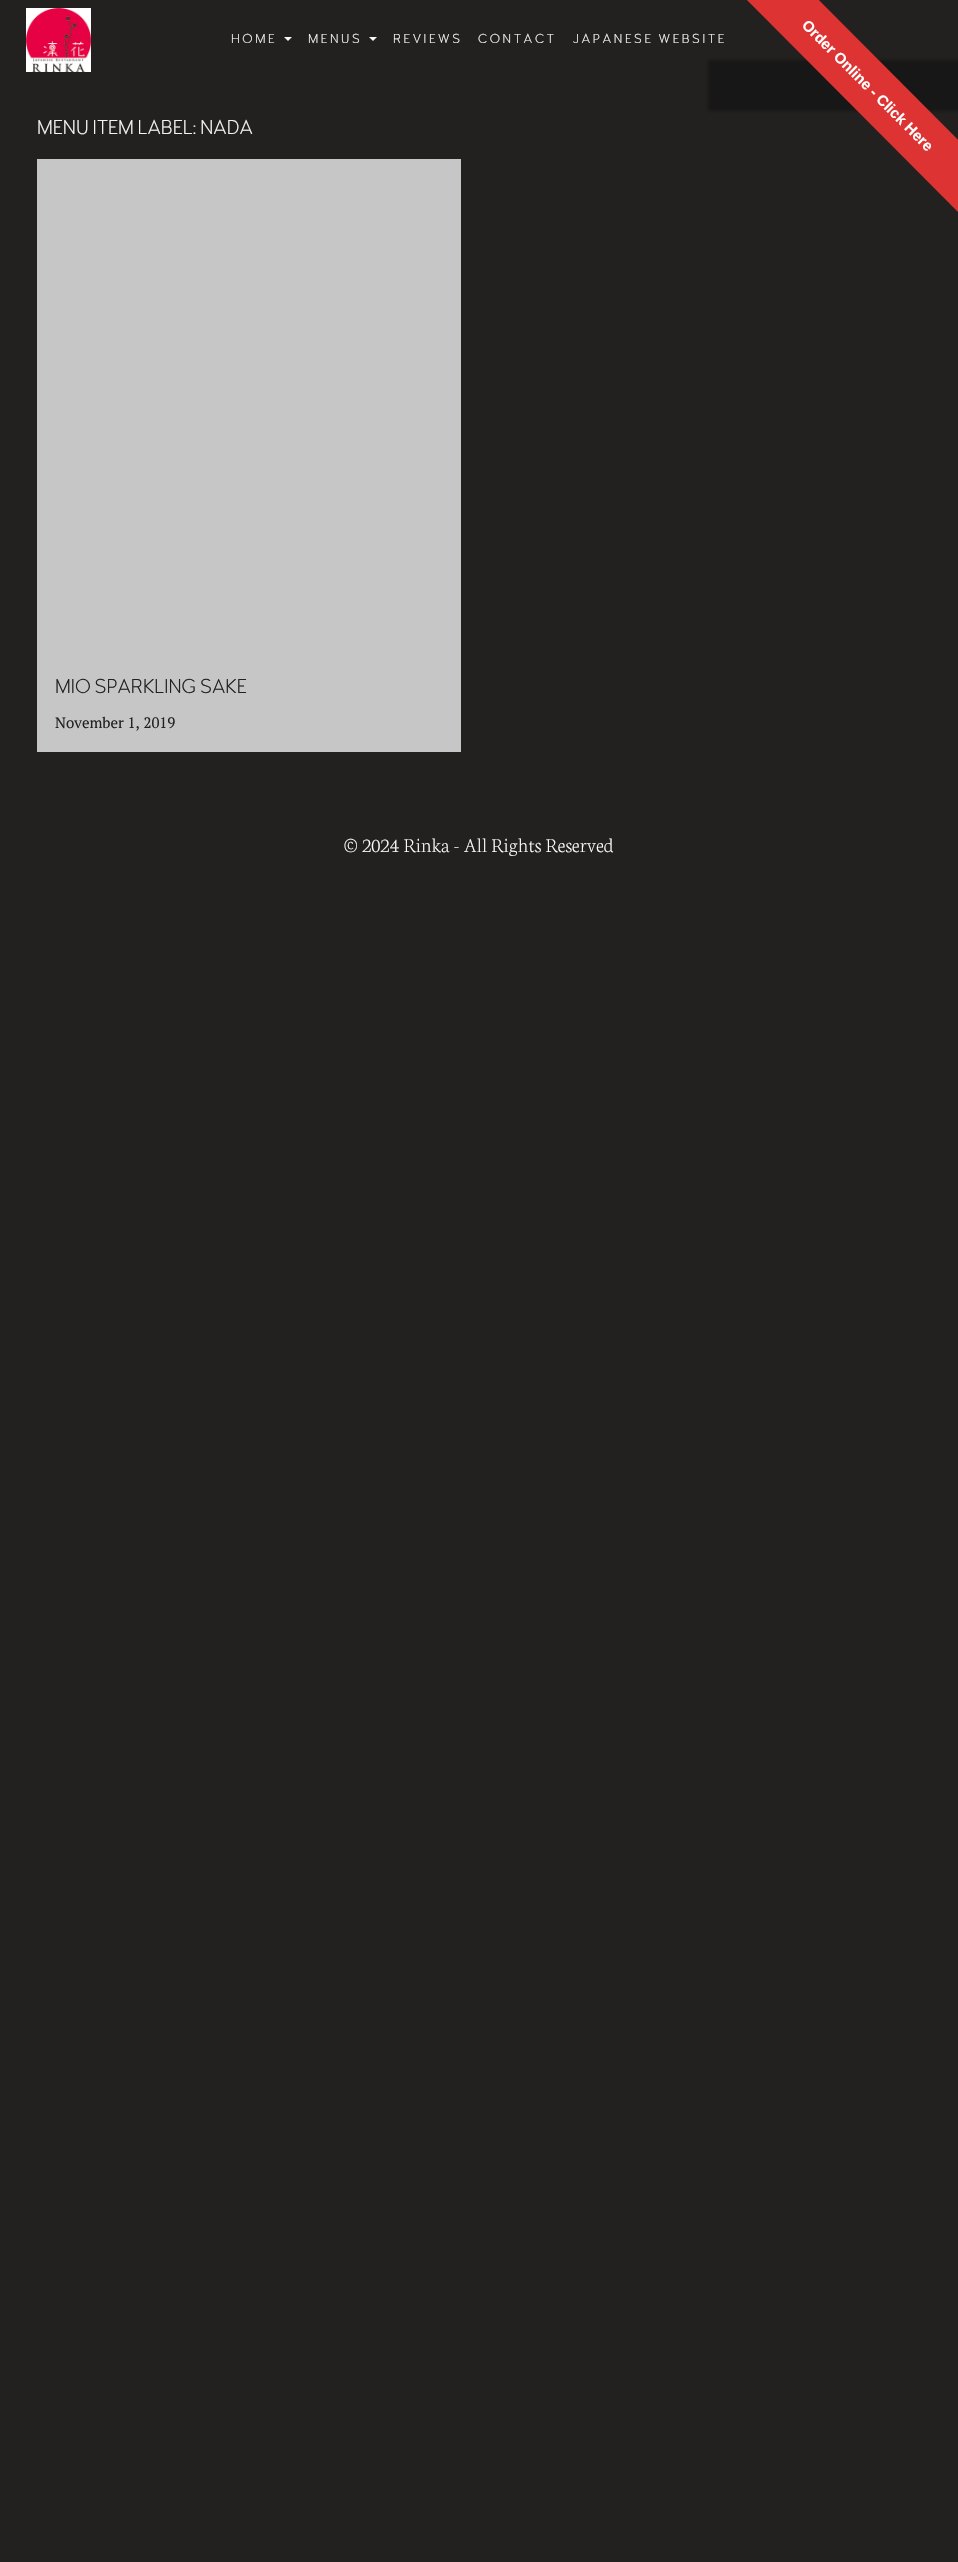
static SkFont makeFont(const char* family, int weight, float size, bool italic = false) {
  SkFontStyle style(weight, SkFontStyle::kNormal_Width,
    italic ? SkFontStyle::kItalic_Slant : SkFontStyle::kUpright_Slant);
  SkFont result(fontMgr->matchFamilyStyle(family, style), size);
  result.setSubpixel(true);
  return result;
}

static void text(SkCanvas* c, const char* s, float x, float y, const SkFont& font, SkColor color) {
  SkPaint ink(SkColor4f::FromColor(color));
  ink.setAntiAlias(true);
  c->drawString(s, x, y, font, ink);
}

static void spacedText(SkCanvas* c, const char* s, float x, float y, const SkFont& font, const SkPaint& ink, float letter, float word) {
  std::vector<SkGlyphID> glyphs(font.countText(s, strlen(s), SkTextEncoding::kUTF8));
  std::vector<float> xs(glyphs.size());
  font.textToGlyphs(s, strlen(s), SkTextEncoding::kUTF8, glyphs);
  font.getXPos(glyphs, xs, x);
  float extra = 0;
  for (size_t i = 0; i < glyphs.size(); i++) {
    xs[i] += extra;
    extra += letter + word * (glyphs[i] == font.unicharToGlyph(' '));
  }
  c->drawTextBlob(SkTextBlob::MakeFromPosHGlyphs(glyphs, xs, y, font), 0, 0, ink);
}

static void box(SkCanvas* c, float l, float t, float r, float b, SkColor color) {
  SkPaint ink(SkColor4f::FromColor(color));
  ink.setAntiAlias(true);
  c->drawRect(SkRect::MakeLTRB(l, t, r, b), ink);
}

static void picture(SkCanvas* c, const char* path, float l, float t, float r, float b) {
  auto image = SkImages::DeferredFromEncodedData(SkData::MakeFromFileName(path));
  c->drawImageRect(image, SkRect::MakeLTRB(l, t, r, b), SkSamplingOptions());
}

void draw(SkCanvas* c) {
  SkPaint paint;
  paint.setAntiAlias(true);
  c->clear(0xff222120);
  picture(c, "img_01.png", 26, 8, 91, 72);
  SkFont face1 = makeFont("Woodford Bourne", 100, 13);
  paint.setColor(0xfff7f7f7);
  spacedText(c, "HOME", 231, 43, face1, paint, 2.6f, 0);
  c->drawPath(SkPathBuilder().moveTo(284, 37).lineTo(292, 37).lineTo(288, 41).close().detach(), paint);
  spacedText(c, "MENUS", 308, 43, face1, paint, 2.6f, 0);
  c->drawPath(SkPathBuilder().moveTo(369, 37).lineTo(377, 37).lineTo(373, 41).close().detach(), paint);
  spacedText(c, "REVIEWS", 393, 43, face1, paint, 2.6f, 0);
  spacedText(c, "CONTACT", 478, 43, face1, paint, 2.6f, 0);
  spacedText(c, "JAPANESE WEBSITE", 573, 43, face1, paint, 2.6f, 0);
  SkFont face2 = makeFont("Woodford Bourne", 100, 20);
  text(c, "MENU ITEM LABEL: NADA", 37, 134, face2, 0xfff4f3f0);
  box(c, 37, 159, 461, 752, 0xffc6c6c6);
  text(c, "MIO SPARKLING SAKE", 55, 693, face2, 0xff222120);
  SkFont face3 = makeFont("PT Serif", 400, 15);
  text(c, "November 1, 2019", 55, 728, face3, 0xff222120);
  SkFont face4 = makeFont("Neuton", 200, 21);
  text(c, "© 2024 Rinka - All Rights Reserved", 344, 852, face4, 0xffffffff);
  paint.setColor(0x4d000000);
  paint.setMaskFilter(SkMaskFilter::MakeBlur(kNormal_SkBlurStyle, 1.5f));
  c->drawRect(SkRect::MakeLTRB(708, 60, 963, 111), paint);
  paint.setMaskFilter(nullptr);
  paint.setColor(0xffdd3333);
  c->drawPath(SkPathBuilder().moveTo(773, -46).lineTo(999, 181).lineTo(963, 217).lineTo(737, -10).close().detach(), paint);
  SkFont face5 = makeFont("Liberation Sans", 700, 15);
  c->save();
  c->rotate(45, 801, 26);
  text(c, "Order Online - Click Here", 801, 26, face5, 0xffffffff);
  c->restore();
}
